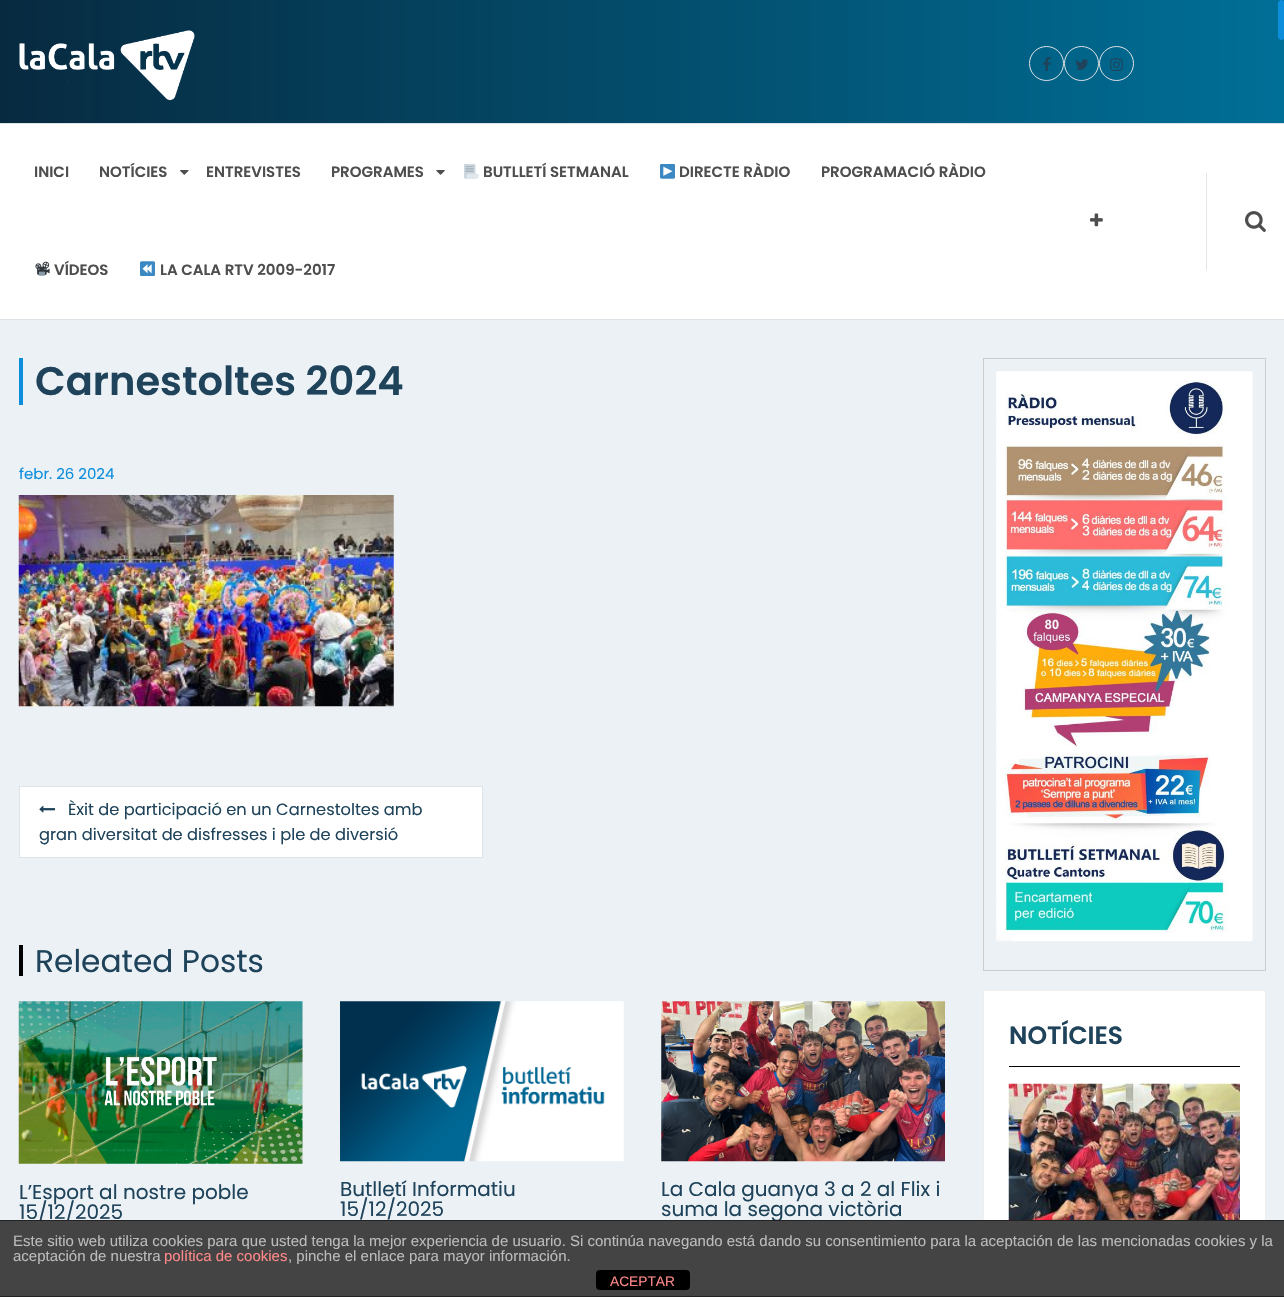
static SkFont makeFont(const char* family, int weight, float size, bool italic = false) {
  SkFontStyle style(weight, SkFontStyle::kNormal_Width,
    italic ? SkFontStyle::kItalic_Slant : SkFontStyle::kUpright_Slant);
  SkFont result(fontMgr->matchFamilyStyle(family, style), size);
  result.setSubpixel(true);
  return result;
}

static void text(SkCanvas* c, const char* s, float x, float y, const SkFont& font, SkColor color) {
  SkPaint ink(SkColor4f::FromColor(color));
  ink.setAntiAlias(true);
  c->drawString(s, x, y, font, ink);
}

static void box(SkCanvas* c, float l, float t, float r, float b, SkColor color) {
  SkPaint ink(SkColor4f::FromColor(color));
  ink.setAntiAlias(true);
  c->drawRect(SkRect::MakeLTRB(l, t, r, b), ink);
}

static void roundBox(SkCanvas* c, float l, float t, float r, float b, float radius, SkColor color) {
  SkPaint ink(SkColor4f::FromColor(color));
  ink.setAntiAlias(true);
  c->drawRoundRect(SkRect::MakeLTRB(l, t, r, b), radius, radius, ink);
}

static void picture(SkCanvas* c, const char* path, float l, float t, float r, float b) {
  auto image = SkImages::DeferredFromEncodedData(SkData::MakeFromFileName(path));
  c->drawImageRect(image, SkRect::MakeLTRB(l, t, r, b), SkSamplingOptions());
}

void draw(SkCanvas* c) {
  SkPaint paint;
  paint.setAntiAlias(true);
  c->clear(0xffecf1f5);
  {
    const SkColor colors[] = {0xff072a40, 0xff006f97};
    const float stops[] = {0, 1};
    const SkPoint ends[] = {{0, 61}, {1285, 61}};
    paint.setShader(SkGradientShader::MakeLinear(ends, colors, stops, 2, SkTileMode::kClamp));
    paint.setAlpha(255);
  }
  c->drawRect(SkRect::MakeLTRB(0, 0, 1284, 123), paint);
  paint.setShader(nullptr);
  paint.setColor(0xff0c8edc);
  c->drawRoundRect(SkRect::MakeLTRB(1278.5f, 0.5f, 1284.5f, 39.5f), 3, 3, paint);
  paint.setStyle(SkPaint::kStroke_Style);
  paint.setStrokeWidth(1);
  c->drawRoundRect(SkRect::MakeLTRB(1278.5f, 0.5f, 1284.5f, 39.5f), 3, 3, paint);
  picture(c, "img_01.png", 19, 30, 195, 101);
  paint.setColor(0xffdce1e4);
  c->drawCircle(1046.5f, 63.5f, 17, paint);
  picture(c, "img_02.png", 1043, 57, 1051, 71);
  c->drawCircle(1081.5f, 63.5f, 17, paint);
  picture(c, "img_03.png", 1075, 59, 1089, 70);
  c->drawCircle(1116.5f, 63.5f, 17, paint);
  picture(c, "img_04.png", 1110, 58, 1123, 71);
  box(c, 0, 124, 1284, 319, 0xffffffff);
  box(c, 0, 123, 1284, 124, 0xffdee3e7);
  box(c, 0, 319, 1284, 320, 0xffdee3e7);
  SkFont face1 = makeFont("Poppins", 600, 15);
  text(c, "INICI", 34, 177, face1, 0xff4e4e4f);
  text(c, "NOTÍCIES", 99, 177, face1, 0xff4e4e4f);
  picture(c, "img_05.png", 180, 170, 189, 175);
  text(c, "ENTREVISTES", 206, 177, face1, 0xff4e4e4f);
  text(c, "PROGRAMES", 331, 177, face1, 0xff4e4e4f);
  picture(c, "img_06.png", 436, 170, 445, 175);
  picture(c, "img_07.png", 464, 164, 479, 179);
  text(c, "BUTLLETÍ SETMANAL", 483, 177, face1, 0xff4e4e4f);
  picture(c, "img_08.png", 660, 164, 675, 179);
  text(c, "DIRECTE RÀDIO", 679, 177, face1, 0xff4e4e4f);
  text(c, "PROGRAMACIÓ RÀDIO", 821, 177, face1, 0xff4e4e4f);
  picture(c, "img_09.png", 35, 261, 50, 276);
  text(c, "VÍDEOS", 54, 275, face1, 0xff4e4e4f);
  picture(c, "img_10.png", 140, 261, 155, 276);
  text(c, "LA CALA RTV 2009-2017", 160, 275, face1, 0xff4e4e4f);
  picture(c, "img_11.png", 1090, 213, 1103, 227);
  box(c, 1206, 173, 1207, 270, 0xffe5e5e5);
  picture(c, "img_12.png", 1245, 211, 1266, 232);
  box(c, 19, 358, 23, 405, 0xff0c8edc);
  SkFont face2 = makeFont("Poppins", 600, 40);
  text(c, "Carnestoltes 2024", 35, 395, face2, 0xff1e435a);
  SkFont face3 = makeFont("Poppins", 400, 15);
  text(c, "febr. 26 2024", 19, 479, face3, 0xff0c8edc);
  picture(c, "img_13.png", 18, 495, 394, 707);
  paint.setStyle(SkPaint::kFill_Style);
  paint.setColor(0xffffffff);
  c->drawRect(SkRect::MakeLTRB(19.5f, 786.5f, 482.5f, 857.5f), paint);
  paint.setStyle(SkPaint::kStroke_Style);
  paint.setColor(0xffdee3e7);
  c->drawRect(SkRect::MakeLTRB(19.5f, 786.5f, 482.5f, 857.5f), paint);
  picture(c, "img_14.png", 39, 805, 55, 813);
  SkFont face4 = makeFont("Poppins", 400, 16.25f);
  text(c, "Èxit de participació en un Carnestoltes amb", 68, 815, face4, 0xff1e435a);
  text(c, "gran diversitat de disfresses i ple de diversió", 39, 840, face4, 0xff1e435a);
  box(c, 19, 945, 23, 976, 0xff000000);
  SkFont face5 = makeFont("Poppins", 400, 31.25f);
  text(c, "Releated Posts", 35, 972, face5, 0xff1e435a);
  picture(c, "img_15.png", 18, 1001, 303, 1164);
  SkFont face6 = makeFont("Poppins", 400, 20);
  text(c, "L’Esport al nostre poble", 19, 1199, face6, 0xff1e435a);
  text(c, "15/12/2025", 19, 1219, face6, 0xff1e435a);
  picture(c, "img_16.png", 340, 1001, 624, 1162);
  text(c, "Butlletí Informatiu", 340, 1196, face6, 0xff1e435a);
  text(c, "15/12/2025", 340, 1216, face6, 0xff1e435a);
  picture(c, "img_17.png", 661, 1001, 945, 1162);
  text(c, "La Cala guanya 3 a 2 al Flix i", 661, 1196, face6, 0xff1e435a);
  text(c, "suma la segona victòria", 661, 1216, face6, 0xff1e435a);
  paint.setColor(0xffcccccc);
  c->drawRect(SkRect::MakeLTRB(983.5f, 358.5f, 1265.5f, 970.5f), paint);
  picture(c, "img_18.png", 996, 371, 1253, 942);
  box(c, 984, 991, 1265, 1220, 0xffffffff);
  paint.setColor(0xffeeeeee);
  c->drawRect(SkRect::MakeLTRB(983.5f, 990.5f, 1265.5f, 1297.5f), paint);
  box(c, 1009, 1066, 1240, 1067, 0xff000000);
  SkFont face7 = makeFont("Poppins", 600, 25);
  text(c, "NOTÍCIES", 1009, 1044, face7, 0xff1e435a);
  picture(c, "img_19.png", 1008, 1083, 1240, 1220);
  box(c, 0, 1221, 1284, 1296, 0xff444444);
  box(c, 0, 1220, 1284, 1221, 0xff222222);
  box(c, 0, 1296, 1284, 1297, 0xff222222);
  SkFont face8 = makeFont("Liberation Sans", 400, 15);
  text(c, "Este sitio web utiliza cookies para que usted tenga la mejor experiencia de usuario. Si continúa navegando está dando su consentimiento para la aceptación de las mencionadas cookies y la", 13, 1246, face8, 0xffbbbbbb);
  text(c, "aceptación de nuestra", 13, 1261, face8, 0xffbbbbbb);
  text(c, "política de cookies", 164, 1261, face8, 0xffff8888);
  text(c, ", pinche el enlace para mayor información.", 288, 1261, face8, 0xffbbbbbb);
  roundBox(c, 596, 1270, 690, 1290, 4, 0xff000000);
  SkFont face9 = makeFont("Liberation Sans", 400, 13.75f);
  text(c, "ACEPTAR", 610, 1286, face9, 0xffff8888);
}
